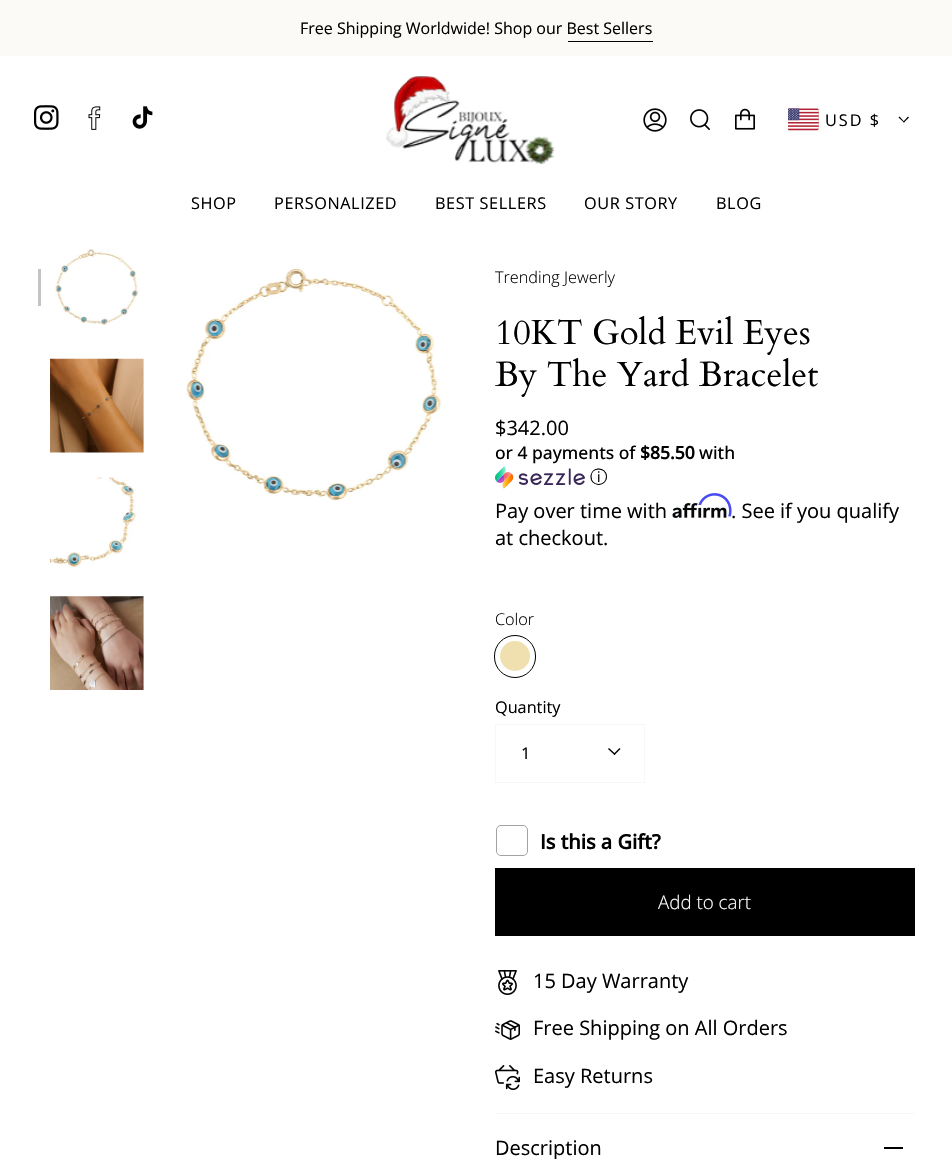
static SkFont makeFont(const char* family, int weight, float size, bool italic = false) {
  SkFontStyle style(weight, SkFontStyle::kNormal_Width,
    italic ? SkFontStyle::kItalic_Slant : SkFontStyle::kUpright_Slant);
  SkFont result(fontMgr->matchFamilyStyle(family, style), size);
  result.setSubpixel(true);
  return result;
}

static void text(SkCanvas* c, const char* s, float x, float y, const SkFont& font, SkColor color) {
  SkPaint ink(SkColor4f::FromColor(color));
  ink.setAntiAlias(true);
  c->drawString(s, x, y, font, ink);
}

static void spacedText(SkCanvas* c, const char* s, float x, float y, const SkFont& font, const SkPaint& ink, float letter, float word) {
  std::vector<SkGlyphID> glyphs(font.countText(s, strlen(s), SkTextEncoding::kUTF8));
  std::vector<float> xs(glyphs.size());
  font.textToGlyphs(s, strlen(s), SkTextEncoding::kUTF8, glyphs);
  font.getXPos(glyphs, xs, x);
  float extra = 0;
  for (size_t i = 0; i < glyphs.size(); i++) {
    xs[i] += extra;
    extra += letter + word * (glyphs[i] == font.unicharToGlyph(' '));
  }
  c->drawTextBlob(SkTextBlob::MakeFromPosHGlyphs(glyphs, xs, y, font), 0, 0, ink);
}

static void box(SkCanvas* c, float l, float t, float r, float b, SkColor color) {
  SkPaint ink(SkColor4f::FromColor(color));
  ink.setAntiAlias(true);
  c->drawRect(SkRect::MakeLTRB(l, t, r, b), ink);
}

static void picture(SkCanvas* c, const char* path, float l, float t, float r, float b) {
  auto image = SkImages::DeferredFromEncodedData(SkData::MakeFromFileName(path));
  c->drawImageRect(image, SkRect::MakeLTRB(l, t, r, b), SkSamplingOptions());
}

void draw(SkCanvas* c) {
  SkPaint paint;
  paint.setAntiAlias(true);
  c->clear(0xffffffff);
  box(c, 0, 0, 952, 56, 0xfffcfaf6);
  SkFont face1 = makeFont("Open Sans", 400, 16);
  text(c, "Free Shipping Worldwide! Shop our Best Sellers", 300, 34, face1, 0xff000000);
  paint.setColor(0xff000000);
  c->drawPath(SkPathBuilder().moveTo(568, 41).lineTo(568, 42).lineTo(652, 42).lineTo(653, 42).lineTo(653, 41).close().detach(), paint);
  picture(c, "img_01.png", 34, 105, 59, 130);
  picture(c, "img_02.png", 88, 106, 101, 130);
  picture(c, "img_03.png", 132, 106, 153, 129);
  picture(c, "img_04.png", 386, 76, 555, 165);
  picture(c, "img_05.png", 643, 108, 667, 132);
  picture(c, "img_06.png", 690, 109, 710, 130);
  picture(c, "img_07.png", 735, 108, 755, 130);
  picture(c, "img_08.png", 788, 108, 819, 131);
  SkFont face2 = makeFont("Open Sans", 400, 16.25f);
  spacedText(c, "USD $", 825, 126, face2, paint, 2, 0);
  c->drawPath(SkPathBuilder().moveTo(903, 122).lineTo(908, 116.5f).lineTo(909, 117.5f).lineTo(904, 122.5f).close().detach(), paint);
  c->drawPath(SkPathBuilder().moveTo(898.5f, 117.5f).lineTo(899.5f, 116.5f).lineTo(904.5f, 122).lineTo(904, 122.5f).close().detach(), paint);
  spacedText(c, "SHOP", 191, 209, face2, paint, 0.6f, 0);
  spacedText(c, "PERSONALIZED", 274, 209, face2, paint, 0.6f, 0);
  spacedText(c, "BEST SELLERS", 435, 209, face2, paint, 0.6f, 0);
  spacedText(c, "OUR STORY", 584, 209, face2, paint, 0.6f, 0);
  spacedText(c, "BLOG", 716, 209, face2, paint, 0.6f, 0);
  box(c, 38, 269, 41, 306, 0xffc4c4c4);
  picture(c, "img_09.png", 55, 249, 139, 325);
  picture(c, "img_10.png", 50, 358, 144, 453);
  picture(c, "img_11.png", 50, 477, 136, 567);
  picture(c, "img_12.png", 50, 596, 144, 690);
  picture(c, "img_13.png", 186, 268, 443, 501);
  SkFont face3 = makeFont("Open Sans", 300, 16.25f);
  text(c, "Trending Jewerly", 495, 283, face3, 0xff000000);
  SkFont face4 = makeFont("Cardo", 400, 35);
  text(c, "10KT Gold Evil Eyes", 495, 344, face4, 0xff000000);
  text(c, "By The Yard Bracelet", 495, 386, face4, 0xff000000);
  SkFont face5 = makeFont("Open Sans", 400, 20);
  text(c, "$342.00", 495, 435, face5, 0xff000000);
  SkFont face6 = makeFont("Open Sans", 500, 17.5f);
  text(c, "or 4 payments of", 495, 459, face6, 0xff000000);
  SkFont face7 = makeFont("Open Sans", 700, 17.5f);
  text(c, "$85.50", 640, 459, face7, 0xff000000);
  text(c, "with", 699, 459, face6, 0xff000000);
  picture(c, "img_14.png", 495, 466, 585, 489);
  SkFont face8 = makeFont("WenQuanYi Zen Hei", 500, 17.5f);
  text(c, "ⓘ", 590, 483, face8, 0xff000000);
  text(c, "Pay over time with", 495, 518, face5, 0xff000000);
  picture(c, "img_16.png", 672, 503, 727, 518);
  picture(c, "img_15.png", 698, 493, 732, 517);
  text(c, ". See if you qualify", 731, 518, face5, 0xff000000);
  text(c, "at checkout.", 495, 545, face5, 0xff000000);
  text(c, "Color", 495, 625, face3, 0xff000000);
  paint.setColor(0xfff0e0b0);
  c->drawCircle(515, 656, 15, paint);
  paint.setStyle(SkPaint::kStroke_Style);
  paint.setStrokeWidth(1);
  paint.setColor(0xff000000);
  c->drawRoundRect(SkRect::MakeLTRB(494.5f, 635.5f, 535.5f, 677.5f), 20.5f, 20.5f, paint);
  text(c, "Quantity", 495, 713, face2, 0xff000000);
  paint.setColor(0xfff7f7f7);
  c->drawRect(SkRect::MakeLTRB(495.5f, 724.5f, 644.5f, 782.5f), paint);
  text(c, "1", 521, 759, face2, 0xff000000);
  paint.setStyle(SkPaint::kFill_Style);
  paint.setColor(0xff000000);
  c->drawPath(SkPathBuilder().moveTo(613.5f, 754).lineTo(619.5f, 748).lineTo(620.5f, 749).lineTo(614.5f, 755).close().detach(), paint);
  c->drawPath(SkPathBuilder().moveTo(608, 749).lineTo(609, 748).lineTo(615.5f, 754).lineTo(614.5f, 755).close().detach(), paint);
  paint.setStyle(SkPaint::kStroke_Style);
  paint.setColor(0xffa2a2a2);
  c->drawRoundRect(SkRect::MakeLTRB(496.5f, 825.5f, 527.5f, 855.5f), 4.5f, 4.5f, paint);
  SkFont face9 = makeFont("Open Sans", 700, 20);
  text(c, "Is this a Gift?", 540, 849, face9, 0xff000000);
  box(c, 495, 868, 915, 936, 0xff000000);
  SkFont face10 = makeFont("Open Sans", 300, 18.75f);
  text(c, "Add to cart", 658, 909, face10, 0xffffffff);
  picture(c, "img_17.png", 498, 970, 517, 995);
  text(c, "15 Day Warranty", 533, 988, face5, 0xff000000);
  picture(c, "img_18.png", 495, 1020, 520, 1040);
  text(c, "Free Shipping on All Orders", 533, 1035, face5, 0xff000000);
  picture(c, "img_19.png", 495, 1065, 520, 1090);
  text(c, "Easy Returns", 533, 1083, face5, 0xff000000);
  box(c, 495, 1113, 915, 1114, 0xfff7f7f7);
  text(c, "Description", 495, 1155, face5, 0xff000000);
  box(c, 884, 1147, 903, 1149, 0xff000000);
}
